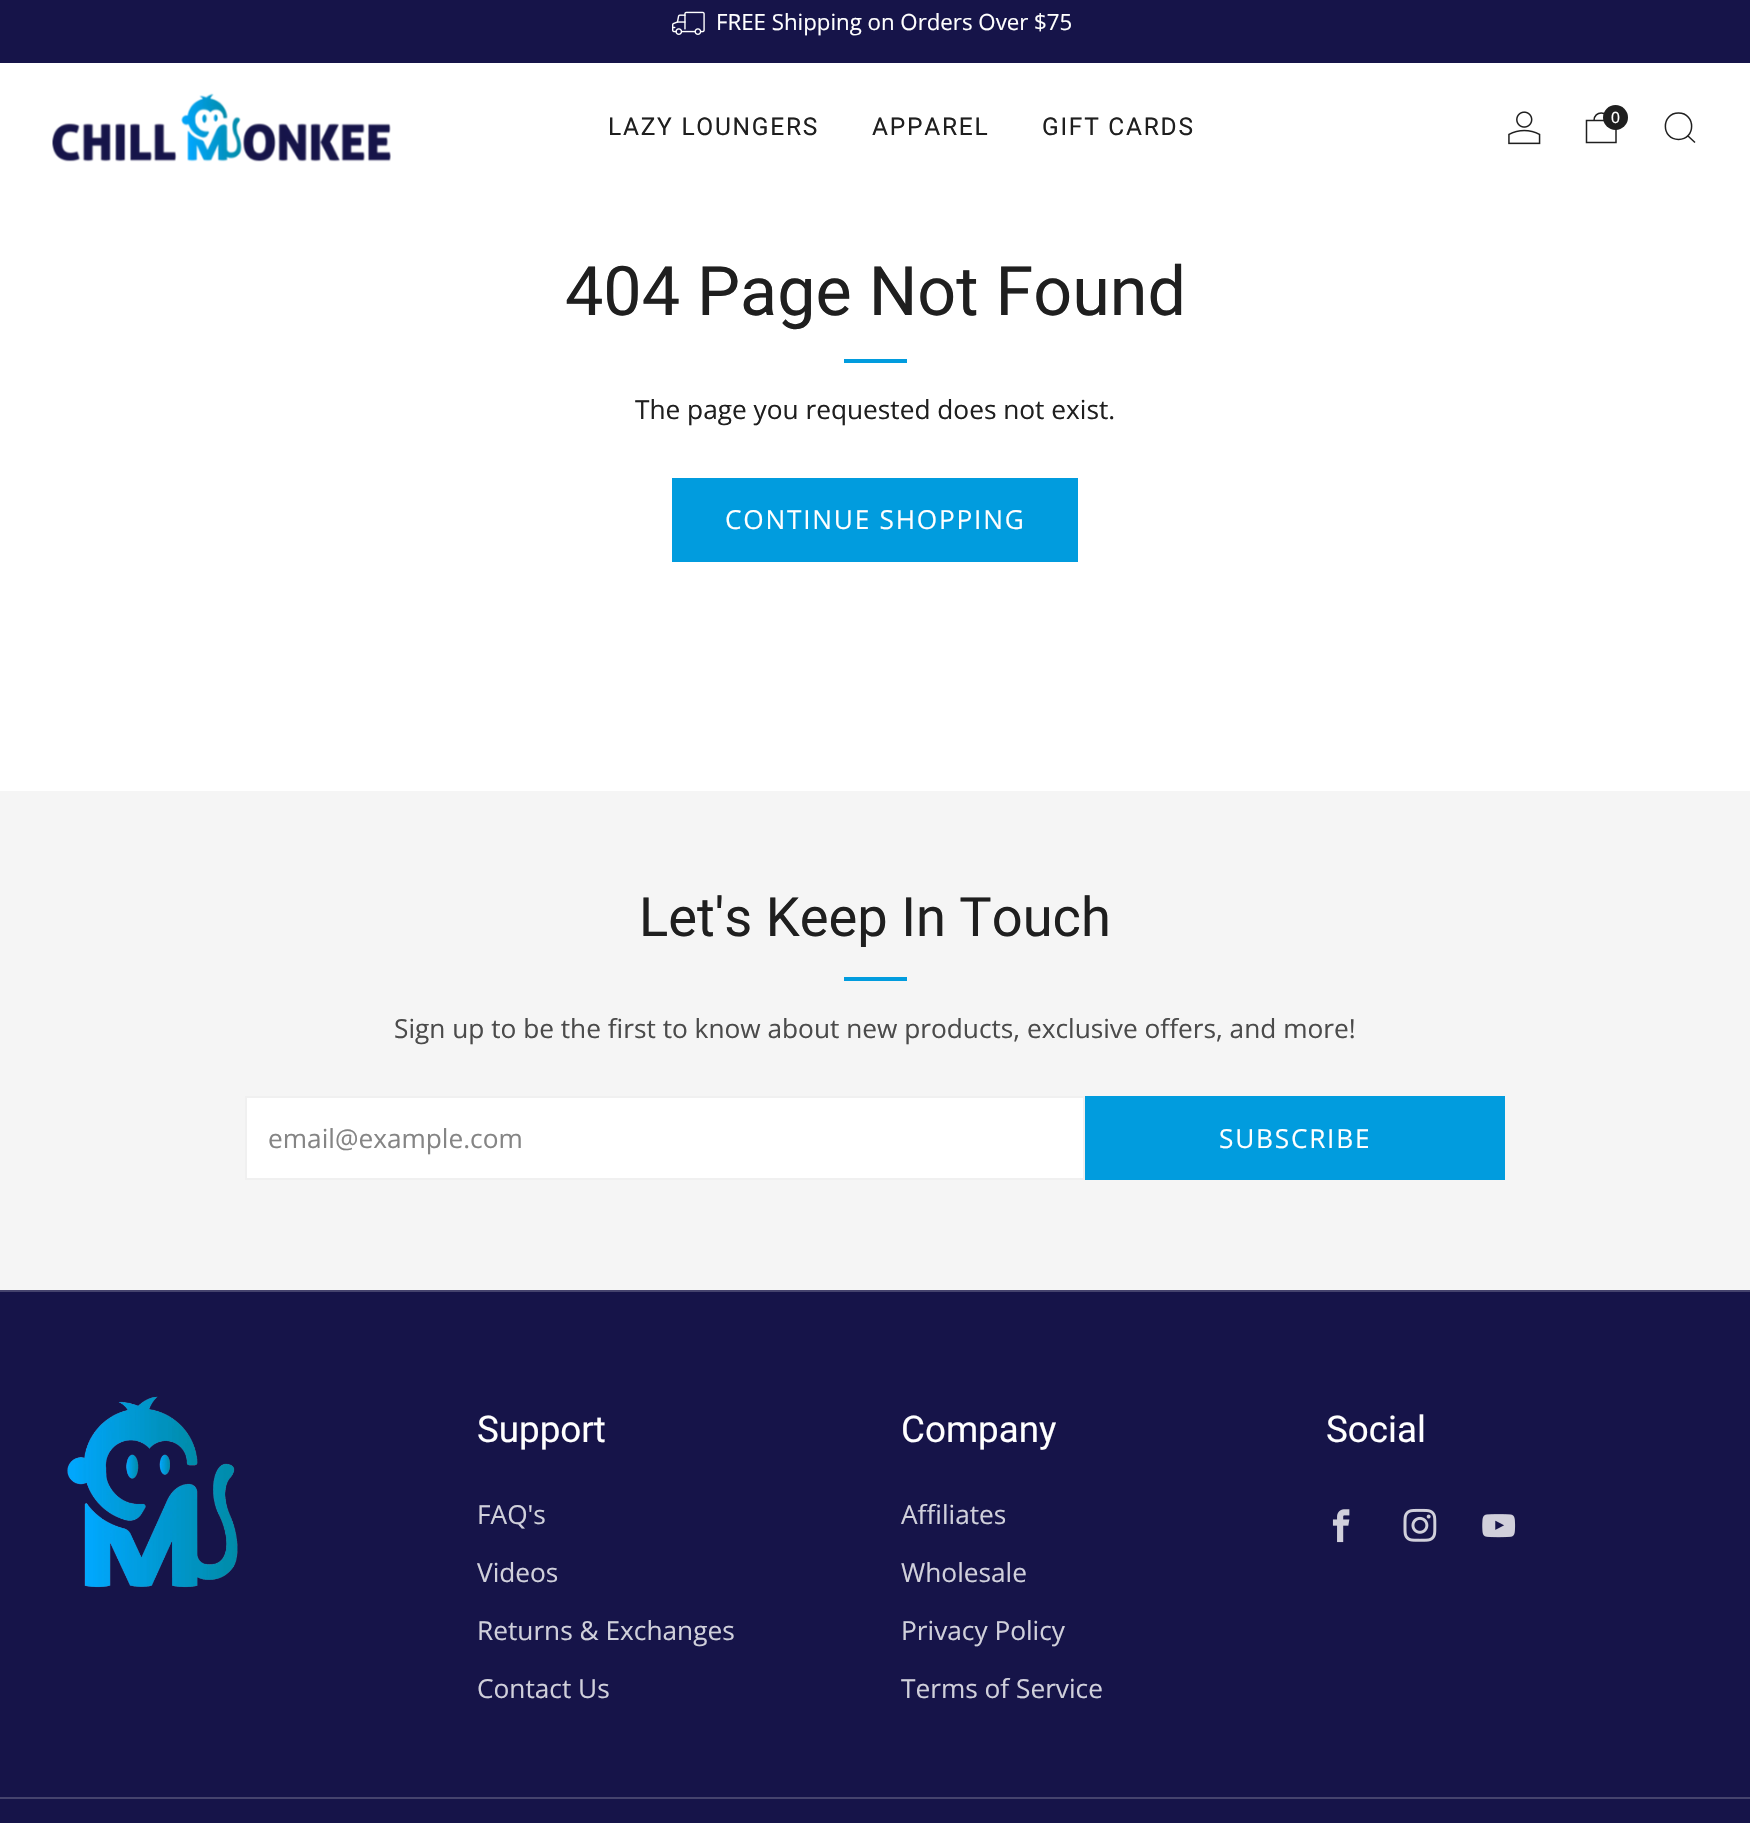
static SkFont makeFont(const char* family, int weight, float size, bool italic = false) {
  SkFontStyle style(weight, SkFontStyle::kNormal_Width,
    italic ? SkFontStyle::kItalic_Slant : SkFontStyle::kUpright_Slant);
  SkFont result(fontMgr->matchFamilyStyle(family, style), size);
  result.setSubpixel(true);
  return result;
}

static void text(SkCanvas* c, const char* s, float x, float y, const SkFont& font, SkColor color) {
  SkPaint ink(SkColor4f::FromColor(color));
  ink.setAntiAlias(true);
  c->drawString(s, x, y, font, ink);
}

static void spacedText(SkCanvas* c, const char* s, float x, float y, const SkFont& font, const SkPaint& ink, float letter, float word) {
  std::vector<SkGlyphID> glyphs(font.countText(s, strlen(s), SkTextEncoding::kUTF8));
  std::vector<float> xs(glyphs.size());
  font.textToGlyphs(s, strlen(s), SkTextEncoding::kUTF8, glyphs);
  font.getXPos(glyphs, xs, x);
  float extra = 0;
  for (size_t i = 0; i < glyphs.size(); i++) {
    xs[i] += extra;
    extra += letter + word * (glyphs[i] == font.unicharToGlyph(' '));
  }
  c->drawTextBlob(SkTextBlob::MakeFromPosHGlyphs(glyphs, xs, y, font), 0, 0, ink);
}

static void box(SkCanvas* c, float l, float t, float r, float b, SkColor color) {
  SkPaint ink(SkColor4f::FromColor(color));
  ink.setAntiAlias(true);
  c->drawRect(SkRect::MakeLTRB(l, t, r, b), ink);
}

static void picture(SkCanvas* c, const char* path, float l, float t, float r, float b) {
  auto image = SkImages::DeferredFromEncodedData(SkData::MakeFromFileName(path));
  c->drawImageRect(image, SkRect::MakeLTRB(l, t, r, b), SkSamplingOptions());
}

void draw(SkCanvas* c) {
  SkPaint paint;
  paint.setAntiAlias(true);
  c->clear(0xffffffff);
  box(c, 0, 0, 1750, 63, 0xff161449);
  picture(c, "img_01.png", 672, 11, 705, 35);
  SkFont face1 = makeFont("Open Sans", 400, 22.25f);
  text(c, "FREE Shipping on Orders Over $75", 716, 30, face1, 0xffffffff);
  picture(c, "img_02.png", 52, 93, 391, 162);
  SkFont face2 = makeFont("Roboto", 400, 24.5f);
  paint.setColor(0xff1f1f1f);
  spacedText(c, "LAZY LOUNGERS", 608, 135, face2, paint, 1.75f, 0);
  spacedText(c, "APPAREL", 872, 135, face2, paint, 1.75f, 0);
  spacedText(c, "GIFT CARDS", 1042, 135, face2, paint, 1.75f, 0);
  picture(c, "img_03.png", 1508, 111, 1541, 145);
  paint.setStyle(SkPaint::kStroke_Style);
  paint.setStrokeWidth(1.5f);
  c->drawPath(SkPathBuilder().moveTo(1586.5f, 120.5f).lineTo(1616, 120.5f).lineTo(1616, 142.5f).lineTo(1586.5f, 142.5f).close().moveTo(1608.5f, 120.5f).cubicTo(1608.5f, 110.5f, 1594, 110.5f, 1594, 120.5f).detach(), paint);
  paint.setStyle(SkPaint::kFill_Style);
  c->drawCircle(1615.5f, 117.5f, 12.5f, paint);
  SkFont face3 = makeFont("Liberation Sans", 400, 16);
  text(c, "0", 1611, 123, face3, 0xffffffff);
  paint.setStyle(SkPaint::kStroke_Style);
  c->drawPath(SkPathBuilder().moveTo(1678.5f, 139.5f).cubicTo(1696, 139.5f, 1696, 113, 1678.5f, 113).cubicTo(1661, 113, 1661, 139.5f, 1678.5f, 139.5f).close().moveTo(1688, 136).lineTo(1695, 142.5f).detach(), paint);
  SkFont face4 = makeFont("Roboto", 400, 68.25f);
  text(c, "404 Page Not Found", 565, 315, face4, 0xff1f1f1f);
  box(c, 844, 359, 907, 363, 0xff019cde);
  SkFont face5 = makeFont("Open Sans", 400, 26.25f);
  text(c, "The page you requested does not exist.", 635, 419, face5, 0xff1f1f1f);
  box(c, 672, 478, 1078, 562, 0xff019cde);
  paint.setStyle(SkPaint::kFill_Style);
  paint.setColor(0xffffffff);
  spacedText(c, "CONTINUE SHOPPING", 725, 529, face5, paint, 1.75f, 0);
  box(c, 0, 791, 1750, 1290, 0xfff5f5f5);
  SkFont face6 = makeFont("Roboto", 400, 54.25f);
  text(c, "Let's Keep In Touch", 639, 936, face6, 0xff1f1f1f);
  box(c, 844, 977, 907, 981, 0xff019cde);
  text(c, "Sign up to be the first to know about new products, exclusive offers, and more!", 394, 1038, face5, 0xff4b4b4b);
  c->drawRect(SkRect::MakeLTRB(246, 1097, 1084, 1179), paint);
  paint.setStyle(SkPaint::kStroke_Style);
  paint.setStrokeWidth(2);
  paint.setColor(0xfff0f0f0);
  c->drawRect(SkRect::MakeLTRB(246, 1097, 1084, 1179), paint);
  text(c, "email@example.com", 268, 1148, face5, 0xff858585);
  box(c, 1085, 1096, 1505, 1180, 0xff019cde);
  paint.setStyle(SkPaint::kFill_Style);
  paint.setColor(0xffffffff);
  spacedText(c, "SUBSCRIBE", 1219, 1148, face5, paint, 1.75f, 0);
  box(c, 0, 1292, 1750, 1823, 0xff161449);
  box(c, 0, 1290, 1750, 1292, 0xff45436d);
  picture(c, "img_04.png", 67, 1396, 238, 1588);
  SkFont face7 = makeFont("Roboto", 400, 36.75f);
  text(c, "Support", 477, 1442, face7, 0xffffffff);
  text(c, "FAQ's", 477, 1524, face5, 0xffd0d0db);
  text(c, "Videos", 477, 1582, face5, 0xffd0d0db);
  text(c, "Returns & Exchanges", 477, 1640, face5, 0xffd0d0db);
  text(c, "Contact Us", 477, 1698, face5, 0xffd0d0db);
  text(c, "Company", 901, 1442, face7, 0xffffffff);
  text(c, "Affiliates", 901, 1524, face5, 0xffd0d0db);
  text(c, "Wholesale", 901, 1582, face5, 0xffd0d0db);
  text(c, "Privacy Policy", 901, 1640, face5, 0xffd0d0db);
  text(c, "Terms of Service", 901, 1698, face5, 0xffd0d0db);
  text(c, "Social", 1326, 1442, face7, 0xffffffff);
  picture(c, "img_05.png", 1332, 1509, 1350, 1543);
  picture(c, "img_06.png", 1403, 1508, 1437, 1542);
  picture(c, "img_07.png", 1482, 1514, 1516, 1538);
  box(c, 0, 1797, 1750, 1799, 0xff45436d);
}
